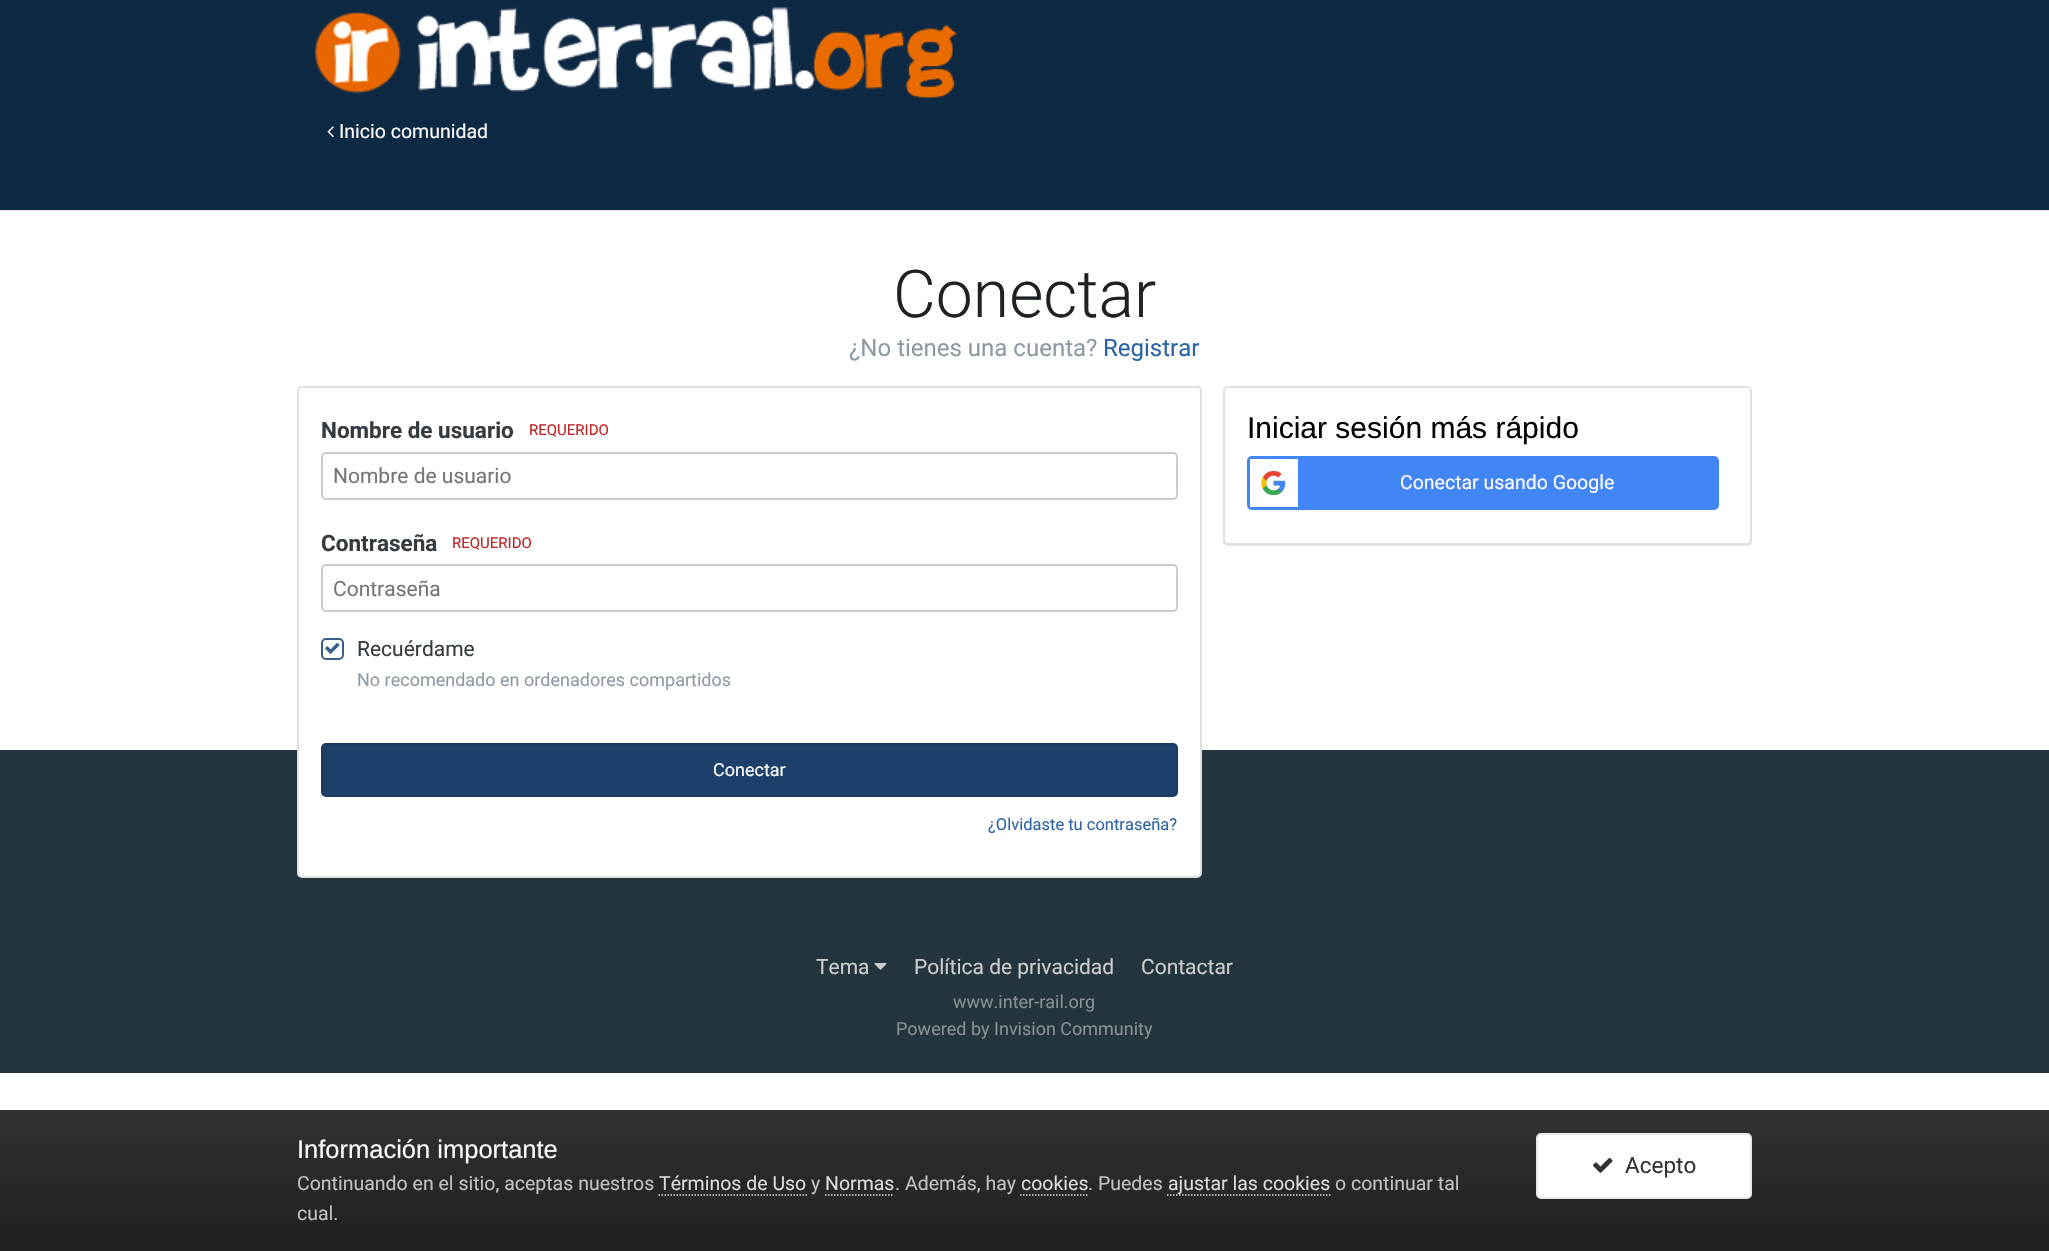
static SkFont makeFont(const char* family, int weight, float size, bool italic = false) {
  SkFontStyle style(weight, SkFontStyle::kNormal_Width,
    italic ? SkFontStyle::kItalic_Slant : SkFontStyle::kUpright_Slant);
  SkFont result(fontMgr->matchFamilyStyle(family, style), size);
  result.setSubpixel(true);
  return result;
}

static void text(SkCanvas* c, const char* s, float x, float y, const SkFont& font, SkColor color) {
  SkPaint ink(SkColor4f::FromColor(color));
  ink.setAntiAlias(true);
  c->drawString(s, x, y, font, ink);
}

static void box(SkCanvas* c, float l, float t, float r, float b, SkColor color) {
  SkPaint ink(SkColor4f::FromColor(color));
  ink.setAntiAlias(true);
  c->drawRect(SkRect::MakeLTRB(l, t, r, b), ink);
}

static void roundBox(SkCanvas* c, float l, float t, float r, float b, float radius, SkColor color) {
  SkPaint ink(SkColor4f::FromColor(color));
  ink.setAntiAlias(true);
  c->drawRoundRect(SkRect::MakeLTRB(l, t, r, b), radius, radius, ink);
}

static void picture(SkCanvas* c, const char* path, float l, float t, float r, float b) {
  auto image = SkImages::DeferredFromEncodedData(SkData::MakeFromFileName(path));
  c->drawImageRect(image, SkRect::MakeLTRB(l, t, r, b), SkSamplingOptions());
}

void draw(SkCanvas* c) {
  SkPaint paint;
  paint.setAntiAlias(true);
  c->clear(0xffffffff);
  box(c, 0, 210, 2049, 211, 0xffe6e6e6);
  box(c, 0, 0, 2049, 209, 0xff0e2944);
  box(c, 0, 209, 2049, 210, 0xff0d253d);
  picture(c, "img_01.png", 314, 7, 957, 98);
  picture(c, "img_02.png", 327, 126, 334, 138);
  SkFont face1 = makeFont("Roboto", 400, 19.5f);
  text(c, "Inicio comunidad", 339, 138, face1, 0xffffffff);
  SkFont face2 = makeFont("Roboto", 300, 66);
  text(c, "Conectar", 893, 317, face2, 0xff1e2225);
  SkFont face3 = makeFont("Roboto", 400, 24);
  text(c, "¿No tienes una cuenta?", 849, 356, face3, 0xff8d9aa6);
  text(c, "Registrar", 1103, 356, face3, 0xff2b64a6);
  box(c, 0, 750, 2049, 1073, 0xff25353e);
  paint.setColor(0x1a000000);
  c->drawPath(SkPathBuilder().moveTo(297, 873).lineTo(297, 874).cubicTo(297, 877, 299, 879, 302, 879).lineTo(1197, 879).cubicTo(1200, 879, 1202, 877, 1202, 874).lineTo(1202, 392).lineTo(1201, 390).lineTo(1202, 873).cubicTo(1202, 875, 1199, 878, 1197, 878).lineTo(302, 878).cubicTo(299, 878, 297, 875, 297, 873).close().detach(), paint);
  paint.setColor(0xffffffff);
  c->drawRoundRect(SkRect::MakeLTRB(298, 387, 1201, 877), 4, 4, paint);
  paint.setStyle(SkPaint::kStroke_Style);
  paint.setStrokeWidth(2);
  paint.setColor(0xffe0e0e0);
  c->drawRoundRect(SkRect::MakeLTRB(298, 387, 1201, 877), 4, 4, paint);
  SkFont face4 = makeFont("Roboto", 700, 22.5f);
  text(c, "Nombre de usuario", 321, 438, face4, 0xff353c41);
  SkFont face5 = makeFont("Roboto", 400, 15);
  text(c, "REQUERIDO", 529, 435, face5, 0xffc02222);
  paint.setColor(0xffcccccc);
  c->drawRoundRect(SkRect::MakeLTRB(322, 453, 1177, 499), 4, 4, paint);
  SkFont face6 = makeFont("Roboto", 400, 21);
  text(c, "Nombre de usuario", 333, 483, face6, 0xff757575);
  text(c, "Contraseña", 321, 551, face4, 0xff353c41);
  text(c, "REQUERIDO", 452, 548, face5, 0xffc02222);
  c->drawRoundRect(SkRect::MakeLTRB(322, 565, 1177, 611), 4, 4, paint);
  text(c, "Contraseña", 333, 596, face6, 0xff757575);
  paint.setColor(0xff385e8a);
  c->drawRoundRect(SkRect::MakeLTRB(322, 639, 343, 659), 4, 4, paint);
  picture(c, "img_03.png", 325, 643, 340, 654);
  text(c, "Recuérdame", 357, 656, face6, 0xff353c41);
  SkFont face7 = makeFont("Roboto", 400, 18);
  text(c, "No recomendado en ordenadores compartidos", 357, 686, face7, 0xff8d9aa6);
  roundBox(c, 321, 743, 1178, 797, 5, 0xff1c406a);
  paint.setColor(0x1a000000);
  c->drawRoundRect(SkRect::MakeLTRB(322, 744, 1177, 796), 4, 4, paint);
  text(c, "Conectar", 713, 776, face7, 0xffffffff);
  SkFont face8 = makeFont("Roboto", 400, 16.5f);
  text(c, "¿Olvidaste tu contraseña?", 988, 830, face8, 0xff2b64a6);
  paint.setStyle(SkPaint::kFill_Style);
  paint.setColor(0xffe6e6e6);
  c->drawPath(SkPathBuilder().moveTo(1223, 542).cubicTo(1224, 544, 1226, 546, 1228, 546).lineTo(1747, 546).cubicTo(1750, 546, 1752, 544, 1752, 541).lineTo(1752, 540).cubicTo(1752, 542, 1750, 544, 1748, 544).lineTo(1226, 544).close().detach(), paint);
  paint.setColor(0xffffffff);
  c->drawRoundRect(SkRect::MakeLTRB(1224, 387, 1751, 544), 4, 4, paint);
  paint.setStyle(SkPaint::kStroke_Style);
  paint.setColor(0xffe0e0e0);
  c->drawRoundRect(SkRect::MakeLTRB(1224, 387, 1751, 544), 4, 4, paint);
  SkFont face9 = makeFont("Liberation Sans", 400, 30);
  text(c, "Iniciar sesión más rápido", 1247, 438, face9, 0xff000000);
  roundBox(c, 1247, 456, 1719, 510, 5, 0xff4285f4);
  box(c, 1250, 459, 1298, 507, 0xffffffff);
  picture(c, "img_04.png", 1261, 471, 1286, 495);
  text(c, "Conectar usando Google", 1400, 489, face1, 0xffffffff);
  text(c, "Tema", 816, 974, face6, 0xffcccccc);
  picture(c, "img_05.png", 874, 963, 887, 970);
  text(c, "Política de privacidad", 914, 974, face6, 0xffcccccc);
  text(c, "Contactar", 1141, 974, face6, 0xffcccccc);
  text(c, "www.inter-rail.org", 953, 1008, face7, 0xff899093);
  text(c, "Powered by Invision Community", 896, 1035, face7, 0xff899093);
  paint.setStyle(SkPaint::kFill_Style);
  {
    const SkColor colors[] = {0xff313131, 0xff202020};
    const float stops[] = {0, 1};
    const SkPoint ends[] = {{1025, 1110}, {1025, 1251}};
    paint.setShader(SkGradientShader::MakeLinear(ends, colors, stops, 2, SkTileMode::kClamp));
    paint.setAlpha(255);
  }
  c->drawRect(SkRect::MakeLTRB(0, 1110, 2049, 1251), paint);
  SkFont face10 = makeFont("Liberation Sans", 400, 25.5f);
  text(c, "Información importante", 297, 1158, face10, 0xffffffff);
  text(c, "Continuando en el sitio, aceptas nuestros", 297, 1190, face1, 0xffc0c0c0);
  text(c, "Términos de Uso", 659, 1190, face1, 0xffdadada);
  paint.setStyle(SkPaint::kStroke_Style);
  paint.setStrokeWidth(1.5f);
  paint.setShader(nullptr);
  paint.setColor(0xffdadada);
  paint.setPathEffect(SkDashPathEffect::Make({{1.5f, 1.5f}}, 0));
  c->drawPath(SkPathBuilder().moveTo(658.5f, 1195).lineTo(807, 1195).detach(), paint);
  paint.setPathEffect(nullptr);
  text(c, "y", 811, 1190, face1, 0xffc0c0c0);
  text(c, "Normas", 825, 1190, face1, 0xffdadada);
  paint.setPathEffect(SkDashPathEffect::Make({{1.5f, 1.5f}}, 0));
  c->drawPath(SkPathBuilder().moveTo(825, 1195).lineTo(894, 1195).detach(), paint);
  paint.setPathEffect(nullptr);
  text(c, ". Además, hay", 895, 1190, face1, 0xffc0c0c0);
  text(c, "cookies", 1021, 1190, face1, 0xffdadada);
  paint.setPathEffect(SkDashPathEffect::Make({{1.5f, 1.5f}}, 0));
  c->drawPath(SkPathBuilder().moveTo(1020, 1195).lineTo(1087.5f, 1195).detach(), paint);
  paint.setPathEffect(nullptr);
  text(c, ". Puedes", 1088, 1190, face1, 0xffc0c0c0);
  paint.setPathEffect(SkDashPathEffect::Make({{1.5f, 1.5f}}, 0));
  c->drawPath(SkPathBuilder().moveTo(1167, 1195).lineTo(1330.5f, 1195).detach(), paint);
  paint.setPathEffect(nullptr);
  text(c, "ajustar las cookies", 1168, 1190, face1, 0xffdadada);
  text(c, "o continuar tal", 1335, 1190, face1, 0xffc0c0c0);
  text(c, "cual.", 297, 1220, face1, 0xffc0c0c0);
  paint.setStyle(SkPaint::kFill_Style);
  paint.setColor(0xffffffff);
  c->drawRoundRect(SkRect::MakeLTRB(1537, 1134, 1751, 1198), 4, 4, paint);
  paint.setStyle(SkPaint::kStroke_Style);
  paint.setStrokeWidth(2);
  paint.setColor(0xffe8e8e8);
  c->drawRoundRect(SkRect::MakeLTRB(1537, 1134, 1751, 1198), 4, 4, paint);
  picture(c, "img_06.png", 1593, 1157, 1613, 1173);
  SkFont face11 = makeFont("Roboto", 400, 22.5f);
  text(c, "Acepto", 1625, 1173, face11, 0xff333333);
}
